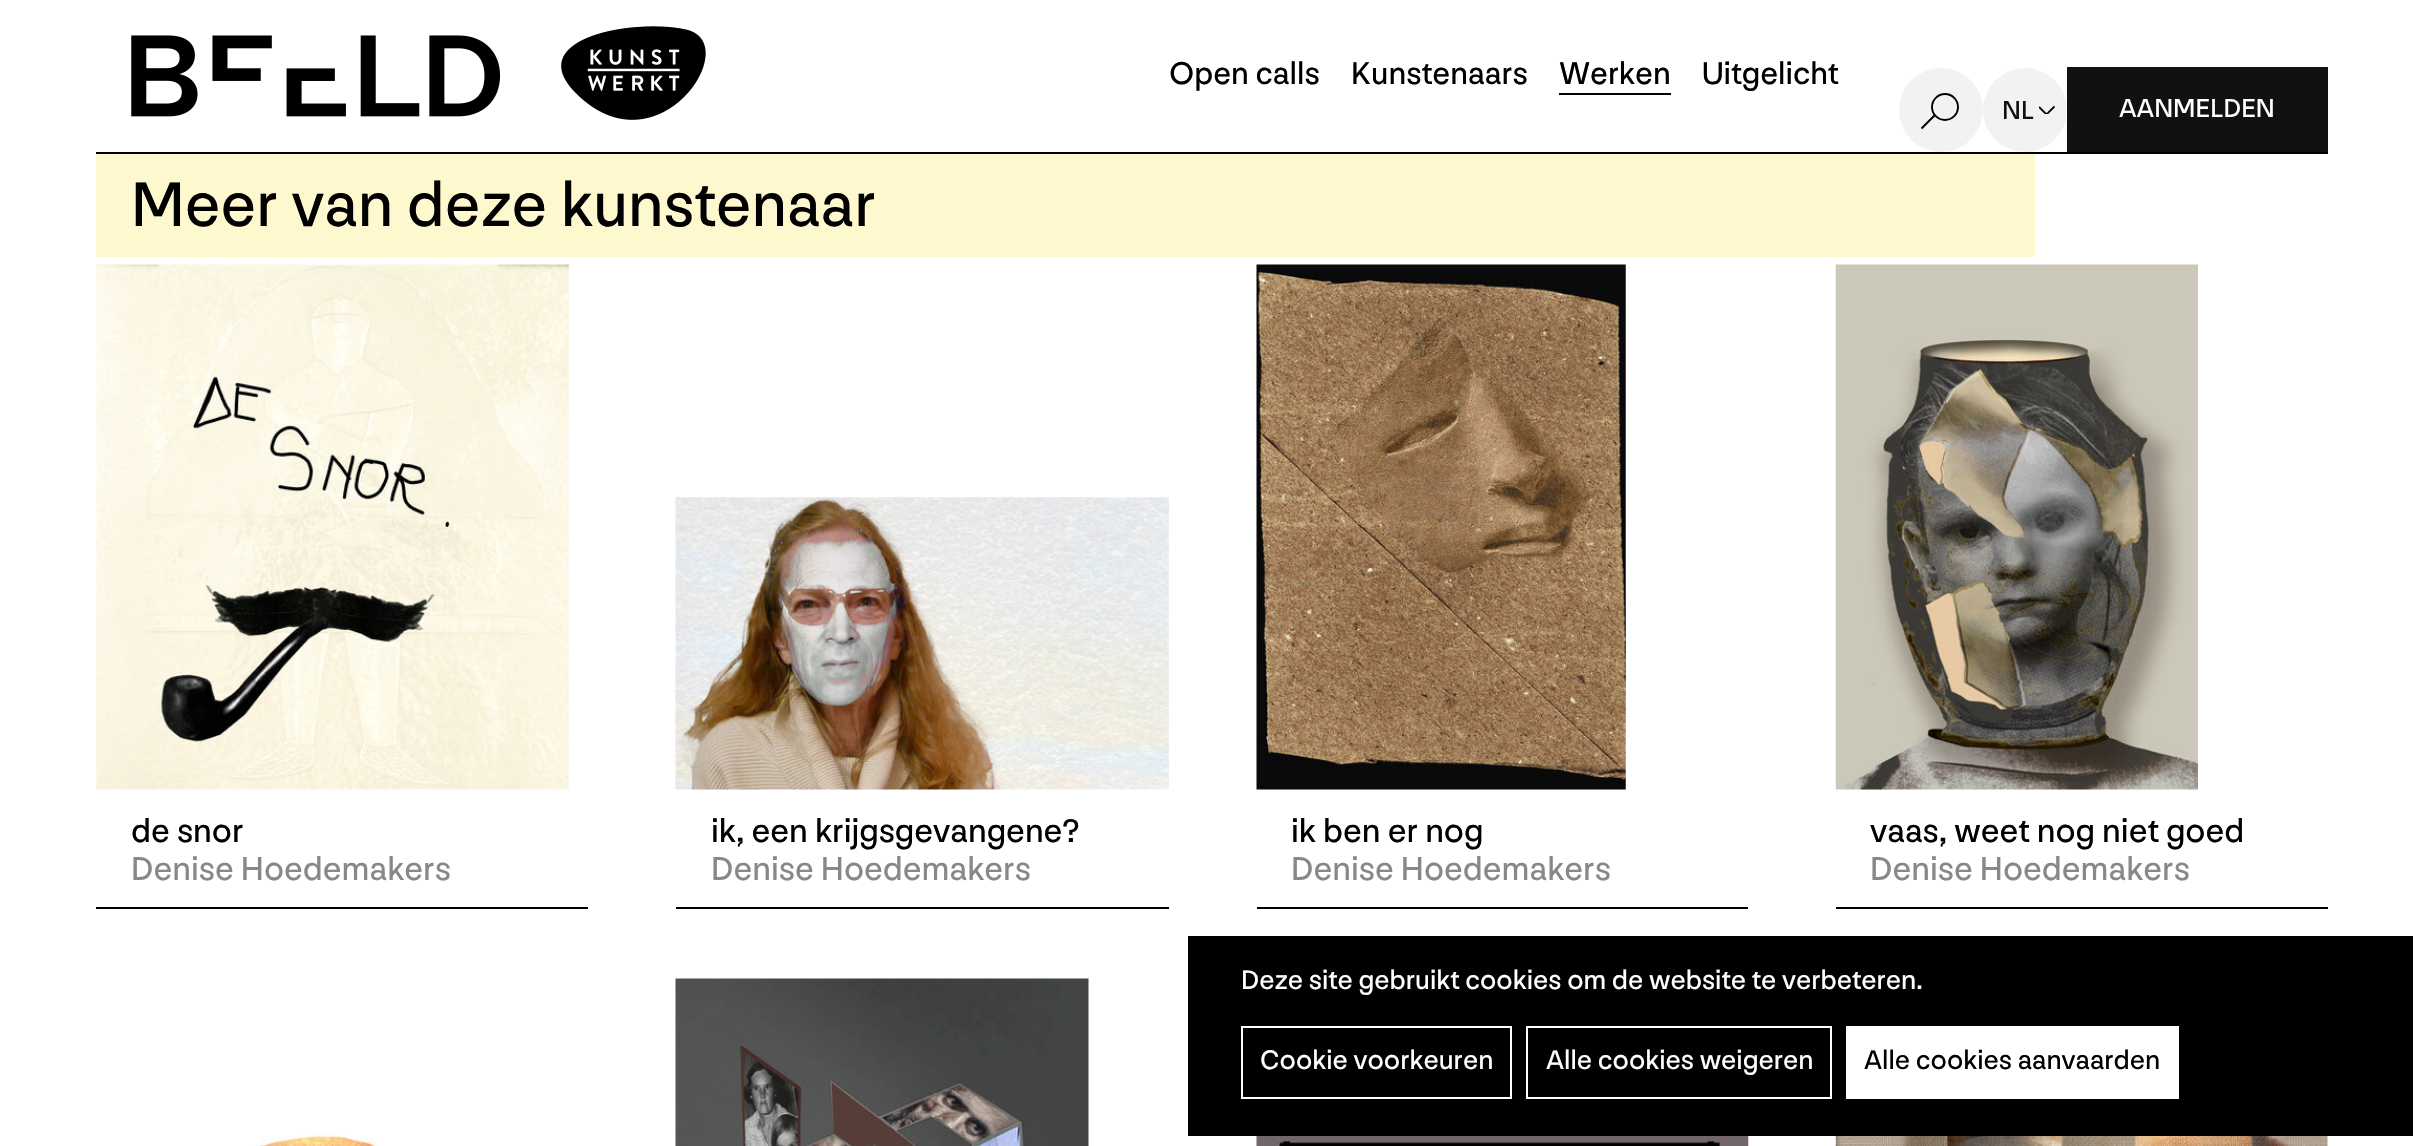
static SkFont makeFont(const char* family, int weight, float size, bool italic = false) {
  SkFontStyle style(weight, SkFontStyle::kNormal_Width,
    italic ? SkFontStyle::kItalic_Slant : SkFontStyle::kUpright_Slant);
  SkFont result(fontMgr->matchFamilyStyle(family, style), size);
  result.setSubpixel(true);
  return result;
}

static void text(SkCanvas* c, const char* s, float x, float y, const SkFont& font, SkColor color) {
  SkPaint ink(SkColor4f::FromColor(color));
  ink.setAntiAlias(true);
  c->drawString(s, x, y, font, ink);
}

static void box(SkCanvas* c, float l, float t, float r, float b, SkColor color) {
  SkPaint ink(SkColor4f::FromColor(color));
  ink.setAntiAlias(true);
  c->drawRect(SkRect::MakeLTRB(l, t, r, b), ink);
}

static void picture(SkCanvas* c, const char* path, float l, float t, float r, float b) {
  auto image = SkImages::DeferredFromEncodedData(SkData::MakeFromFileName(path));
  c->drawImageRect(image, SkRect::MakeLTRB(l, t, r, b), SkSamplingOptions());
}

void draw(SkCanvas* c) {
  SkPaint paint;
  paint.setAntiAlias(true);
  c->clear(0xffffffff);
  box(c, 96, 152, 2328, 154, 0xff000000);
  picture(c, "img_01.png", 131, 35, 501, 117);
  picture(c, "img_02.png", 561, 26, 706, 120);
  SkFont face1 = makeFont("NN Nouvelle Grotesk", 400, 32.75f);
  text(c, "Open calls", 1169, 84, face1, 0xff000000);
  text(c, "Kunstenaars", 1351, 84, face1, 0xff000000);
  box(c, 1559, 93, 1671, 95, 0xff000000);
  text(c, "Werken", 1559, 84, face1, 0xff000000);
  text(c, "Uitgelicht", 1702, 84, face1, 0xff000000);
  paint.setColor(0xfff2f2f2);
  c->drawCircle(1941, 110, 42, paint);
  paint.setStyle(SkPaint::kStroke_Style);
  paint.setStrokeWidth(1.9f);
  paint.setColor(0xff000000);
  c->drawCircle(1945, 107, 13, paint);
  c->drawPath(SkPathBuilder().moveTo(1935, 115).lineTo(1921.5f, 128.5f).detach(), paint);
  paint.setStyle(SkPaint::kFill_Style);
  paint.setColor(0xfff2f2f2);
  c->drawCircle(2025, 110, 42, paint);
  SkFont face2 = makeFont("NN Nouvelle Grotesk", 400, 27.25f);
  text(c, "NL", 2002, 119, face2, 0xff111111);
  c->save();
  c->clipRect(SkRect::MakeLTRB(2039, 105, 2055, 114));
  paint.setStyle(SkPaint::kStroke_Style);
  paint.setStrokeWidth(1.8f);
  paint.setColor(0xff000000);
  c->drawPath(SkPathBuilder().moveTo(2046.5f, 114.5f).lineTo(2054.5f, 106.5f).lineTo(2046.5f, 114.5f).lineTo(2047, 114.5f).lineTo(2046.5f, 114.5f).lineTo(2039, 107).close().detach(), paint);
  c->restore();
  box(c, 2067, 67, 2328, 152, 0xff111111);
  text(c, "AANMELDEN", 2119, 117, face2, 0xffffffff);
  box(c, 96, 154, 2035, 257, 0xfffdf8ce);
  SkFont face3 = makeFont("NN Nouvelle Grotesk", 400, 65.5f);
  text(c, "Meer van deze kunstenaar", 131, 226, face3, 0xff000000);
  picture(c, "img_03.png", 96, 264, 569, 790);
  box(c, 96, 907, 588, 909, 0xff000000);
  SkFont face4 = makeFont("NN Nouvelle Grotesk", 400, 34.5f);
  text(c, "de snor", 131, 842, face4, 0xff000000);
  text(c, "Denise Hoedemakers", 131, 880, face4, 0xff888888);
  picture(c, "img_04.png", 675, 497, 1169, 790);
  box(c, 676, 907, 1169, 909, 0xff000000);
  text(c, "ik, een krijgsgevangene?", 711, 842, face4, 0xff000000);
  text(c, "Denise Hoedemakers", 711, 880, face4, 0xff888888);
  picture(c, "img_05.png", 1256, 264, 1626, 790);
  box(c, 1257, 907, 1748, 909, 0xff000000);
  text(c, "ik ben er nog", 1291, 842, face4, 0xff000000);
  text(c, "Denise Hoedemakers", 1291, 880, face4, 0xff888888);
  picture(c, "img_06.png", 1835, 264, 2198, 790);
  box(c, 1836, 907, 2328, 909, 0xff000000);
  text(c, "vaas, weet nog niet goed", 1870, 842, face4, 0xff000000);
  text(c, "Denise Hoedemakers", 1870, 880, face4, 0xff888888);
  picture(c, "img_07.png", 252, 1130, 379, 1146);
  picture(c, "img_08.png", 675, 978, 1089, 1146);
  picture(c, "img_09.png", 1256, 1136, 1749, 1146);
  picture(c, "img_10.png", 1835, 1136, 2328, 1146);
  box(c, 1188, 936, 2413, 1136, 0xff000000);
  SkFont face5 = makeFont("NN Nouvelle Grotesk", 400, 28);
  text(c, "Deze site gebruikt cookies om de website te verbeteren.", 1241, 989, face5, 0xffffffff);
  paint.setStrokeWidth(2);
  paint.setColor(0xffffffff);
  c->drawRect(SkRect::MakeLTRB(1242, 1027, 1511, 1098), paint);
  text(c, "Cookie voorkeuren", 1260, 1069, face5, 0xffffffff);
  c->drawRect(SkRect::MakeLTRB(1527, 1027, 1831, 1098), paint);
  text(c, "Alle cookies weigeren", 1546, 1069, face5, 0xffffffff);
  box(c, 1846, 1026, 2179, 1099, 0xffffffff);
  text(c, "Alle cookies aanvaarden", 1864, 1069, face5, 0xff000000);
}
